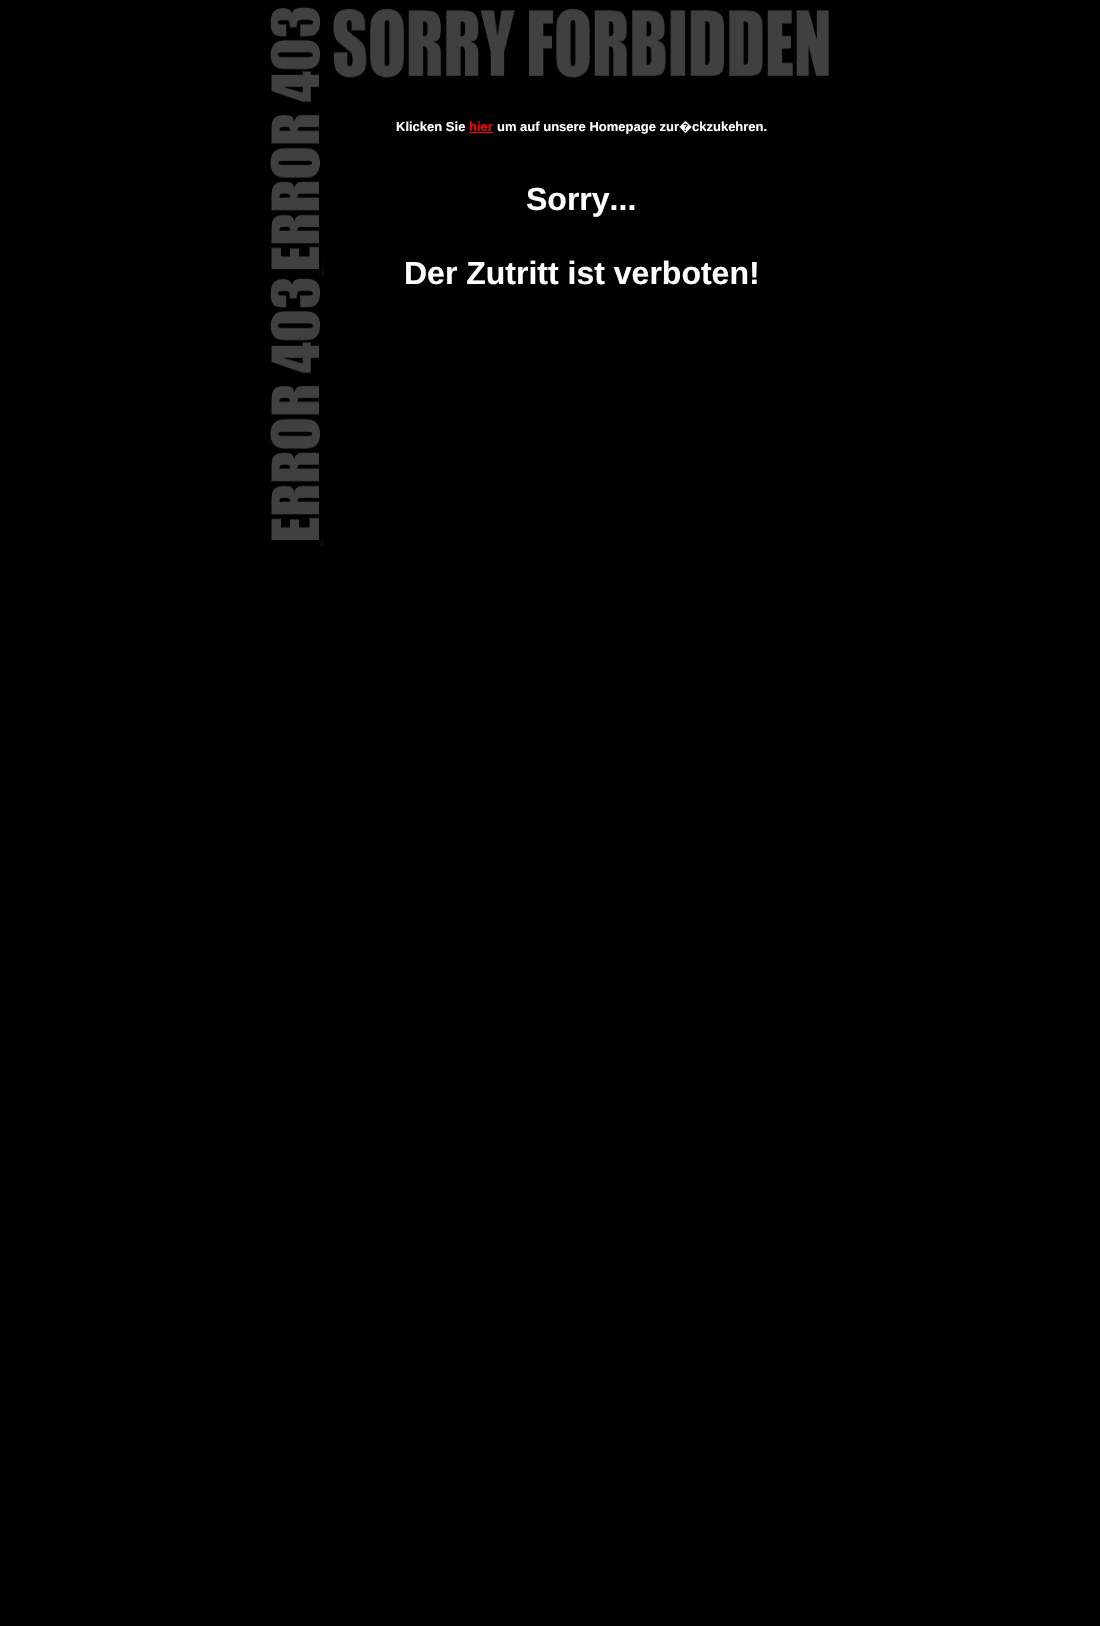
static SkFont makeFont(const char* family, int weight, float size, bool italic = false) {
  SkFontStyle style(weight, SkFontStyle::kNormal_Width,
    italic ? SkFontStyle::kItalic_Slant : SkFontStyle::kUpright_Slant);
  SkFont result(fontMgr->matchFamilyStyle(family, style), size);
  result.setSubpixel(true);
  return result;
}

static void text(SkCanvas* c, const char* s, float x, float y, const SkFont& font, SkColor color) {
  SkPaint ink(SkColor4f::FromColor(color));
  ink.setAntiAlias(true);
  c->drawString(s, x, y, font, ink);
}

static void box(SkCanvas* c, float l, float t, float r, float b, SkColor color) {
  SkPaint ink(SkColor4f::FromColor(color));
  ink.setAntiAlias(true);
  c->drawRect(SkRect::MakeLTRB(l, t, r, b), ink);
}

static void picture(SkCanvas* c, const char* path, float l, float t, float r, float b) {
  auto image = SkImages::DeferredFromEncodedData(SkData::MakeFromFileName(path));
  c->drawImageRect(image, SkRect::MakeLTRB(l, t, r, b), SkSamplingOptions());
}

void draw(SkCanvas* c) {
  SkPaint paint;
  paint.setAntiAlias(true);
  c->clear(0xff000000);
  picture(c, "img_01.png", 270, 7, 324, 275);
  picture(c, "img_01.png", 270, 278, 324, 546);
  picture(c, "img_02.png", 333, 9, 829, 78);
  SkFont face1 = makeFont("Liberation Sans", 700, 13);
  text(c, "Klicken Sie", 396, 131, face1, 0xffffffff);
  text(c, "hier", 469, 131, face1, 0xffff0000);
  box(c, 469, 132, 493, 133, 0xffff0000);
  text(c, "um auf unsere Homepage zur", 497, 131, face1, 0xffffffff);
  SkFont face2 = makeFont("Noto Sans", 700, 13);
  text(c, "�", 679, 131, face2, 0xffffffff);
  text(c, "ckzukehren.", 692, 131, face1, 0xffffffff);
  SkFont face3 = makeFont("Liberation Sans", 700, 32);
  text(c, "Sorry...", 526, 210, face3, 0xffffffff);
  text(c, "Der Zutritt ist verboten!", 404, 284, face3, 0xffffffff);
}
